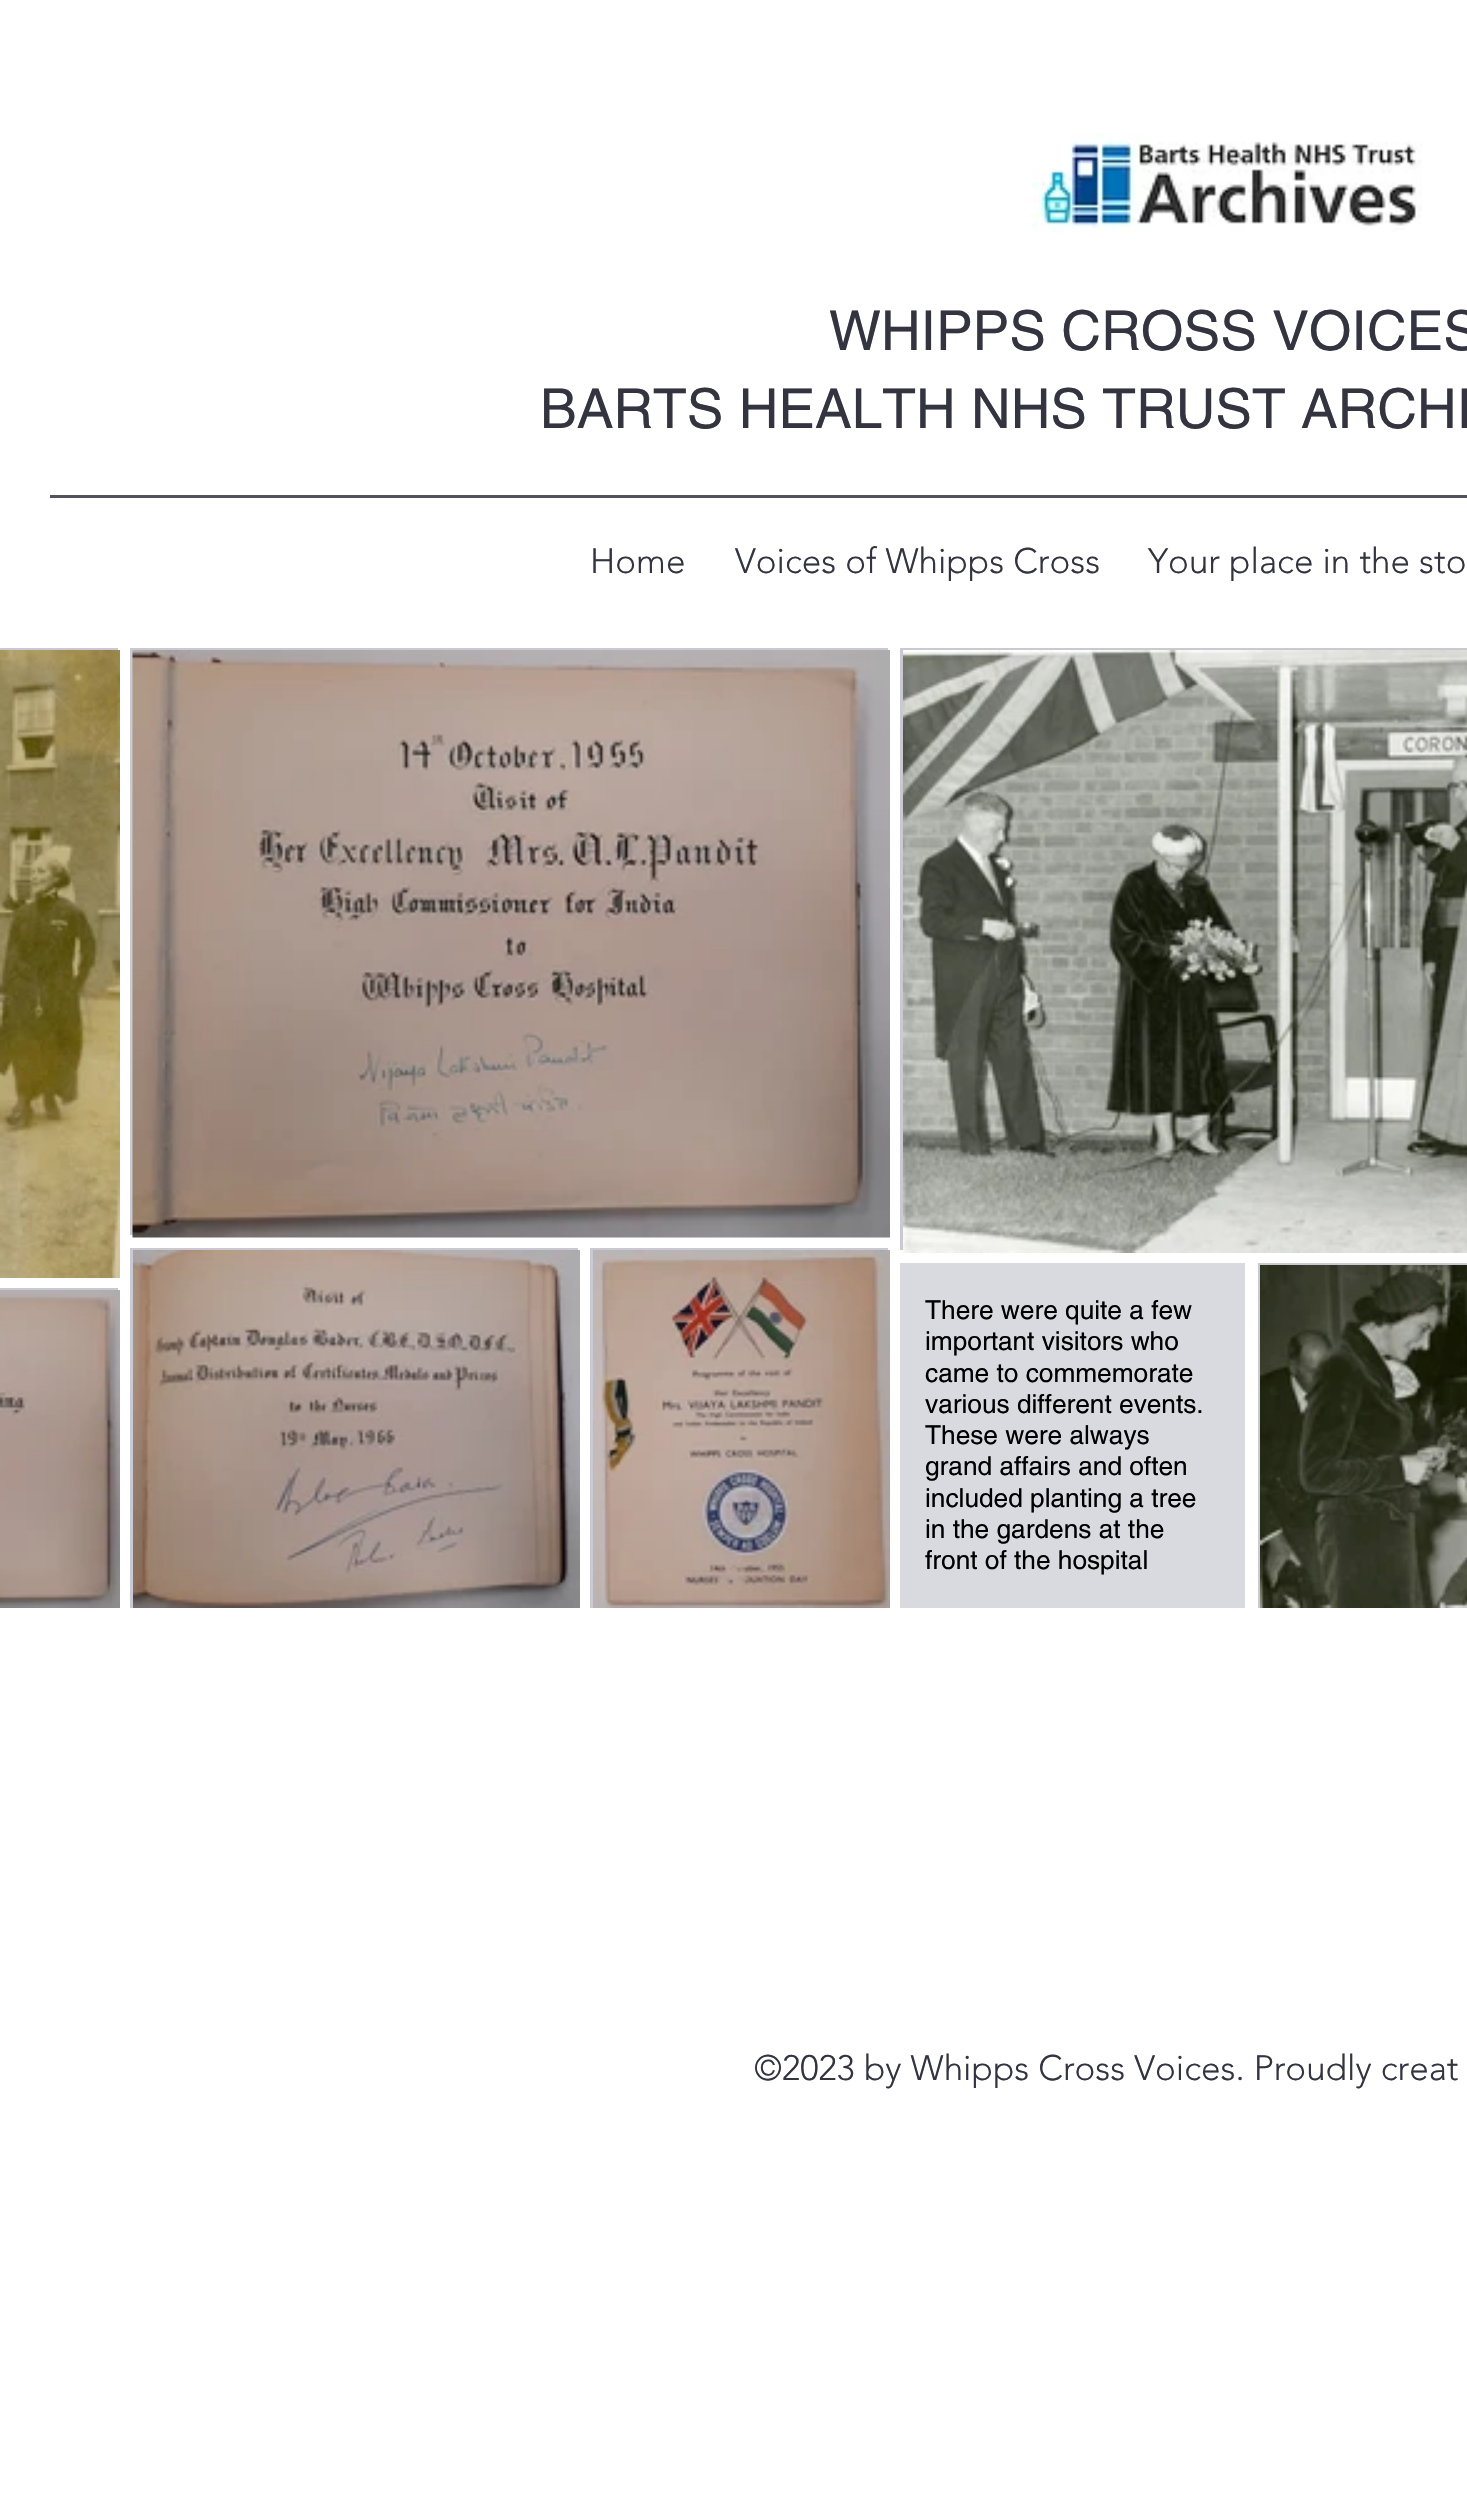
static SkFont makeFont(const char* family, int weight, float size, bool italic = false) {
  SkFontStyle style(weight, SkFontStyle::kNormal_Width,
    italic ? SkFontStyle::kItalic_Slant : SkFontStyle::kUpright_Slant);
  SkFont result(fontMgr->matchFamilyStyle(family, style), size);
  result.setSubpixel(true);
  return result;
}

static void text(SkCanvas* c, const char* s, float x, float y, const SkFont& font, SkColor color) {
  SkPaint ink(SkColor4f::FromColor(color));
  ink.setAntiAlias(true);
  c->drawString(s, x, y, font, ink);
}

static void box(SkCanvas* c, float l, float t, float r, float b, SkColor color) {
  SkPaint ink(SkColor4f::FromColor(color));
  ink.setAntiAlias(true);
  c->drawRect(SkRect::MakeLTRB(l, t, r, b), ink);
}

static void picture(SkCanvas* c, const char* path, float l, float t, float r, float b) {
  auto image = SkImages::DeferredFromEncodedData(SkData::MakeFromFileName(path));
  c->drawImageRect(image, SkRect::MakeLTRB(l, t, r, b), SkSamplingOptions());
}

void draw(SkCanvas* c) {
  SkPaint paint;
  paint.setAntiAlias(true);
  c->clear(0xffffffff);
  picture(c, "img_01.png", 1032, 133, 1422, 233);
  SkFont face1 = makeFont("helvetica", 400, 55);
  text(c, "WHIPPS CROSS VOICES", 829, 350, face1, 0xff33343f);
  text(c, "BARTS HEALTH NHS TRUST ARCHI", 540, 428, face1, 0xff33343f);
  box(c, 50, 495, 1467, 498, 0xff52525c);
  SkFont face2 = makeFont("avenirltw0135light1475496", 300, 35);
  text(c, "Home", 590, 573, face2, 0xff33343f);
  text(c, "Voices of Whipps Cross", 735, 573, face2, 0xff33343f);
  text(c, "Your place in the sto", 1148, 573, face2, 0xff33343f);
  box(c, 0, 648, 118, 650, 0xffc8c9d3);
  picture(c, "img_02.png", 0, 650, 120, 1278);
  box(c, 0, 1288, 118, 1290, 0xffc8c9d3);
  picture(c, "img_03.png", 0, 1290, 120, 1608);
  box(c, 130, 648, 888, 1235, 0xffc8c9d3);
  picture(c, "img_04.png", 132, 650, 890, 1238);
  box(c, 130, 1248, 578, 1608, 0xffc8c9d3);
  picture(c, "img_05.png", 133, 1250, 580, 1608);
  box(c, 590, 1248, 888, 1608, 0xffc8c9d3);
  picture(c, "img_06.png", 593, 1250, 890, 1608);
  box(c, 900, 648, 1467, 1250, 0xffc8c9d3);
  picture(c, "img_07.png", 903, 650, 1467, 1253);
  box(c, 900, 1263, 1245, 1608, 0xffd9d9e0);
  SkFont face3 = makeFont("helvetica", 400, 26.25f);
  text(c, "There were quite a few", 925, 1319, face3, 0xff000000);
  text(c, "important visitors who", 925, 1350, face3, 0xff000000);
  text(c, "came to commemorate", 925, 1382, face3, 0xff000000);
  text(c, "various different events.", 925, 1413, face3, 0xff000000);
  text(c, "These were always", 925, 1444, face3, 0xff000000);
  text(c, "grand affairs and often", 925, 1475, face3, 0xff000000);
  text(c, "included planting a tree", 925, 1507, face3, 0xff000000);
  text(c, "in the gardens at the", 925, 1538, face3, 0xff000000);
  text(c, "front of the hospital", 925, 1569, face3, 0xff000000);
  box(c, 1258, 1263, 1467, 1608, 0xffc8c9d3);
  picture(c, "img_08.png", 1260, 1265, 1467, 1608);
  text(c, "©2023 by Whipps Cross Voices. Proudly creat", 754, 2080, face2, 0xff33343f);
}
